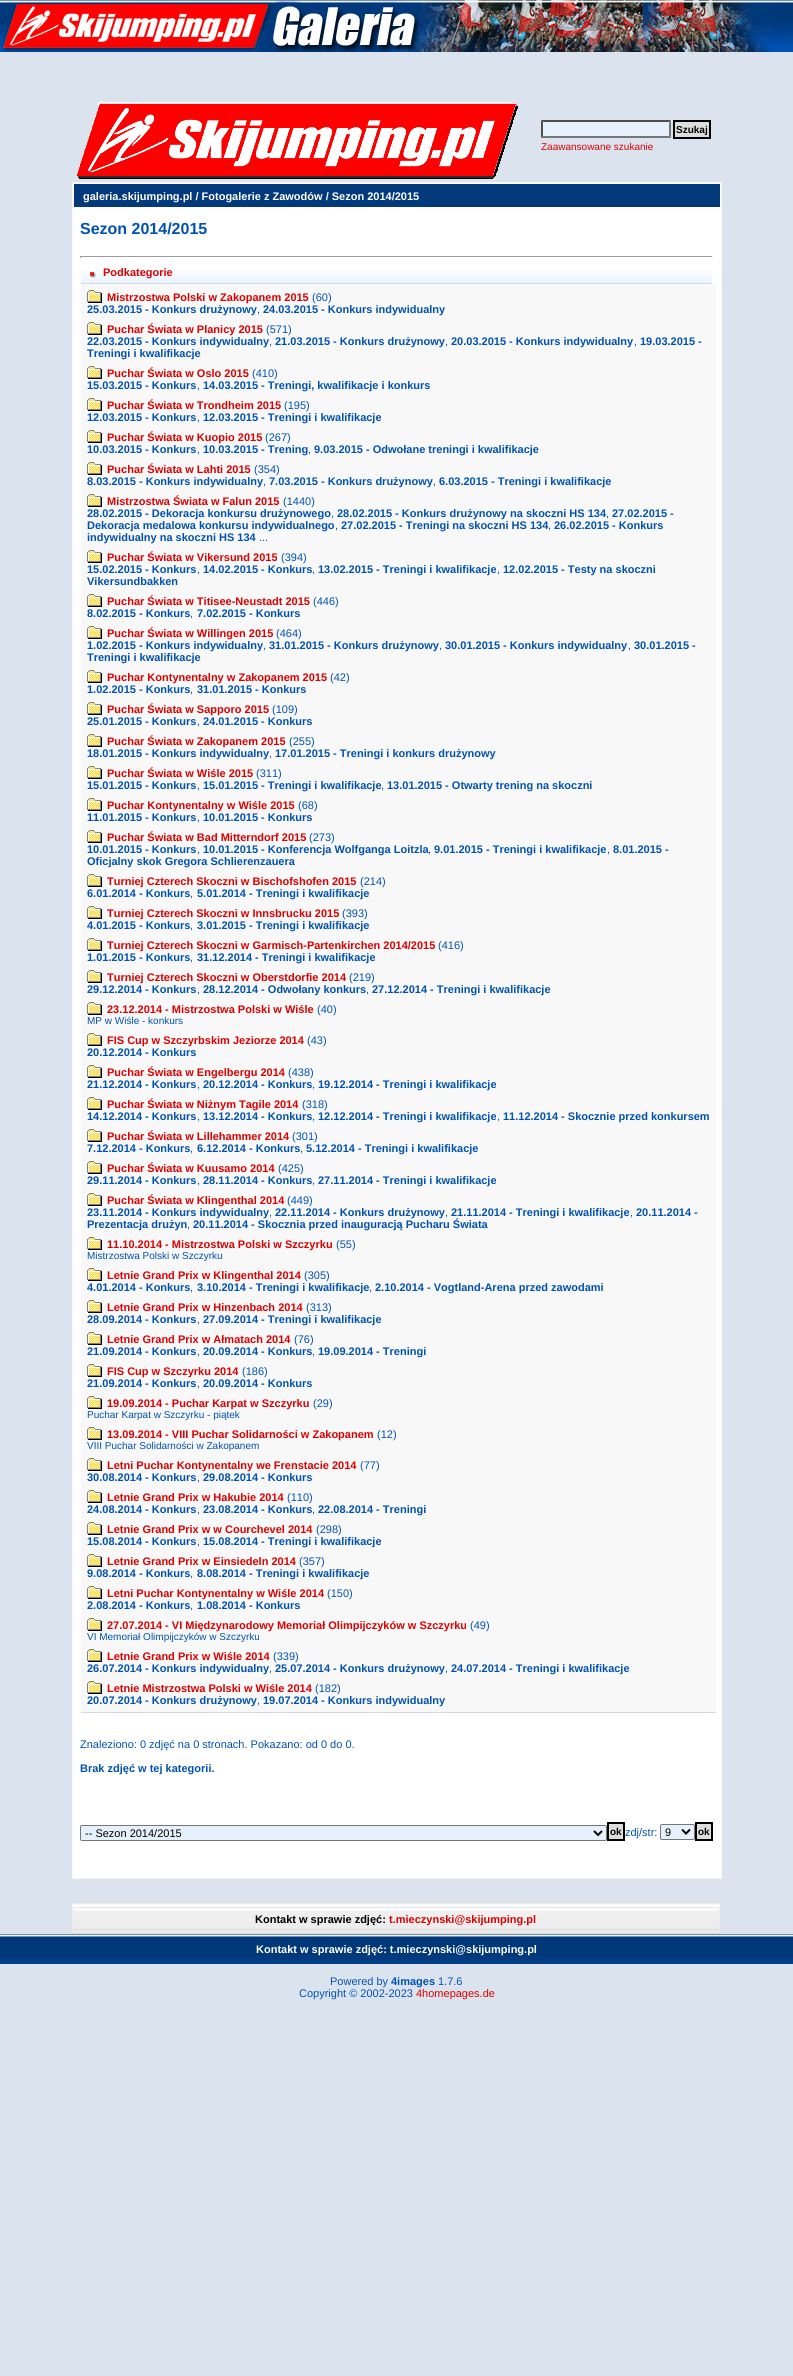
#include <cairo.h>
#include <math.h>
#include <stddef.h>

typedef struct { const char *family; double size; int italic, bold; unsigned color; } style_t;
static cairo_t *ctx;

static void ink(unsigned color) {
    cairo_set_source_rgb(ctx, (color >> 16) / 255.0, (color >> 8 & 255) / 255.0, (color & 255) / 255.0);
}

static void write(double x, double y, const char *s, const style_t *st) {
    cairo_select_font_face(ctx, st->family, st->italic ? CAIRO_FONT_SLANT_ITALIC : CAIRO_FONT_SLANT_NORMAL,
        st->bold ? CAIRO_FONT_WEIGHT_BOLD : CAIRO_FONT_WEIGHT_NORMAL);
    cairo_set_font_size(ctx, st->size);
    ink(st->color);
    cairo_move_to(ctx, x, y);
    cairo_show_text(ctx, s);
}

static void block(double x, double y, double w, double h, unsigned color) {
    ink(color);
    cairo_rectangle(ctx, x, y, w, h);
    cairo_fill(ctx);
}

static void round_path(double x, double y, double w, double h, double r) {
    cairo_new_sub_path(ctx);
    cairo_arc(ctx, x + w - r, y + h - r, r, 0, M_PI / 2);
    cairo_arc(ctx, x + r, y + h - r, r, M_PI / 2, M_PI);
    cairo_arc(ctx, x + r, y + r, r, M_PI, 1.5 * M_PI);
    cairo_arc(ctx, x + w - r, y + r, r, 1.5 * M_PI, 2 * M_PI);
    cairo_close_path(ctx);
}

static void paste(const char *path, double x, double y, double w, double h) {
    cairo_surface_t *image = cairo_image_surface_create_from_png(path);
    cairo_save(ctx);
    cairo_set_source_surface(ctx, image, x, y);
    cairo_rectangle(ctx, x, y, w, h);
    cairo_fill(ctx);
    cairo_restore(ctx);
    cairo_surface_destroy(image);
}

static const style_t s1 = {"Liberation Sans", 10, 0, 1, 0x000000};
static const style_t s2 = {"Liberation Sans", 10, 0, 0, 0xdd0000};
static const style_t s3 = {"Liberation Sans", 11, 0, 1, 0xffffff};
static const style_t s4 = {"Liberation Sans", 16, 0, 1, 0x0052b2};
static const style_t s5 = {"Liberation Sans", 11, 0, 1, 0xdd0000};
static const style_t s6 = {"Liberation Sans", 11, 0, 0, 0x0052b2};
static const style_t s7 = {"Liberation Sans", 11, 0, 1, 0x0052b2};
static const style_t s8 = {"Liberation Sans", 10, 0, 0, 0x0052b2};
static const style_t s9 = {"Liberation Sans", 11, 0, 0, 0x000000};
static const style_t s10 = {"Liberation Sans", 11, 0, 1, 0x000000};
static const style_t s11 = {"Liberation Sans", 11, 0, 0, 0xdd0000};

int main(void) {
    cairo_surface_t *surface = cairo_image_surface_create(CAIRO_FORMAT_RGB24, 793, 2376);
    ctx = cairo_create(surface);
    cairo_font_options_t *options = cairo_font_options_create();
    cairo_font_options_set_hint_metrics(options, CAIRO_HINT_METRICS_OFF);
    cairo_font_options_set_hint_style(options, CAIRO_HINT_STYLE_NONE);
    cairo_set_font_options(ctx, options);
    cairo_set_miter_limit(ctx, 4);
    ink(0xdbe4ee);
    cairo_paint(ctx);
    paste("pic1.png", 770, 0, 23, 52);
    paste("pic2.png", 0, 0, 770, 52);
    paste("pic3.png", 76, 101, 442, 78);
    block(541, 120, 130, 18, 0xe7f1fe);
    ink(0x4f4f4f);
    cairo_new_path(ctx);
    cairo_move_to(ctx, 541, 120);
    cairo_line_to(ctx, 671, 120);
    cairo_line_to(ctx, 669, 122);
    cairo_line_to(ctx, 543, 122);
    cairo_close_path(ctx);
    cairo_fill(ctx);
    ink(0x767676);
    cairo_new_path(ctx);
    cairo_move_to(ctx, 671, 120);
    cairo_line_to(ctx, 671, 138);
    cairo_line_to(ctx, 669, 136);
    cairo_line_to(ctx, 669, 122);
    cairo_close_path(ctx);
    cairo_fill(ctx);
    cairo_new_path(ctx);
    cairo_move_to(ctx, 671, 138);
    cairo_line_to(ctx, 541, 138);
    cairo_line_to(ctx, 543, 136);
    cairo_line_to(ctx, 669, 136);
    cairo_close_path(ctx);
    cairo_fill(ctx);
    ink(0x4f4f4f);
    cairo_new_path(ctx);
    cairo_move_to(ctx, 541, 138);
    cairo_line_to(ctx, 541, 120);
    cairo_line_to(ctx, 543, 122);
    cairo_line_to(ctx, 543, 136);
    cairo_close_path(ctx);
    cairo_fill(ctx);
    ink(0xdddddd);
    cairo_rectangle(ctx, 674, 121, 36, 17);
    cairo_fill_preserve(ctx);
    ink(0x000000);
    cairo_stroke(ctx);
    write(676, 133, "Szukaj", &s1);
    write(541, 150, "Zaawansowane szukanie", &s2);
    block(72, 182, 650, 1697, 0xf8f8f8);
    block(73, 183, 648, 1695, 0xffffff);
    block(74, 184, 646, 23, 0x01397a);
    write(83, 200, "galeria.skijumping.pl / Fotogalerie z Zawodów / Sezon 2014/2015", &s3);
    write(80, 234, "Sezon 2014/2015", &s4);
    block(80, 256, 633, 1, 0x9f9f9f);
    block(712, 256, 1, 2, 0xeeeeee);
    block(80, 256, 1, 2, 0x9f9f9f);
    paste("pic4.png", 81, 270, 631, 13);
    block(81, 283, 631, 1, 0xccdaeb);
    paste("pic5.png", 90, 272, 6, 6);
    write(103, 276, "Podkategorie", &s5);
    block(81, 284, 635, 1428, 0xf8f8f8);
    block(81, 1712, 635, 1, 0xd6d6e4);
    paste("pic6.png", 87, 290, 15, 13);
    write(107, 301, "Mistrzostwa Polski w Zakopanem 2015", &s5);
    write(312, 301, "(60)", &s6);
    write(87, 313, "25.03.2015 - Konkurs drużynowy", &s7);
    write(257, 313, ",", &s6);
    write(263, 313, "24.03.2015 - Konkurs indywidualny", &s7);
    paste("pic6.png", 87, 322, 15, 13);
    write(107, 333, "Puchar Świata w Planicy 2015", &s5);
    write(266, 333, "(571)", &s6);
    write(87, 345, "22.03.2015 - Konkurs indywidualny", &s7);
    write(269, 345, ",", &s6);
    write(275, 345, "21.03.2015 - Konkurs drużynowy", &s7);
    write(445, 345, ",", &s6);
    write(451, 345, "20.03.2015 - Konkurs indywidualny", &s7);
    write(634, 345, ",", &s6);
    write(640, 345, "19.03.2015 -", &s7);
    write(87, 357, "Treningi i kwalifikacje", &s7);
    paste("pic6.png", 87, 366, 15, 13);
    write(107, 377, "Puchar Świata w Oslo 2015", &s5);
    write(252, 377, "(410)", &s6);
    write(87, 389, "15.03.2015 - Konkurs", &s7);
    write(197, 389, ",", &s6);
    write(203, 389, "14.03.2015 - Treningi, kwalifikacje i konkurs", &s7);
    paste("pic6.png", 87, 398, 15, 13);
    write(107, 409, "Puchar Świata w Trondheim 2015", &s5);
    write(284, 409, "(195)", &s6);
    write(87, 421, "12.03.2015 - Konkurs", &s7);
    write(197, 421, ",", &s6);
    write(203, 421, "12.03.2015 - Treningi i kwalifikacje", &s7);
    paste("pic6.png", 87, 430, 15, 13);
    write(107, 441, "Puchar Świata w Kuopio 2015", &s5);
    write(265, 441, "(267)", &s6);
    write(87, 453, "10.03.2015 - Konkurs", &s7);
    write(197, 453, ",", &s6);
    write(203, 453, "10.03.2015 - Trening", &s7);
    write(308, 453, ",", &s6);
    write(314, 453, "9.03.2015 - Odwołane treningi i kwalifikacje", &s7);
    paste("pic6.png", 87, 462, 15, 13);
    write(107, 473, "Puchar Świata w Lahti 2015", &s5);
    write(254, 473, "(354)", &s6);
    write(87, 485, "8.03.2015 - Konkurs indywidualny", &s7);
    write(263, 485, ",", &s6);
    write(269, 485, "7.03.2015 - Konkurs drużynowy", &s7);
    write(433, 485, ",", &s6);
    write(439, 485, "6.03.2015 - Treningi i kwalifikacje", &s7);
    paste("pic6.png", 87, 494, 15, 13);
    write(107, 505, "Mistrzostwa Świata w Falun 2015", &s5);
    write(283, 505, "(1440)", &s6);
    write(87, 517, "28.02.2015 - Dekoracja konkursu drużynowego", &s7);
    write(331, 517, ",", &s6);
    write(337, 517, "28.02.2015 - Konkurs drużynowy na skoczni HS 134", &s7);
    write(606, 517, ",", &s6);
    write(612, 517, "27.02.2015 -", &s7);
    write(87, 529, "Dekoracja medalowa konkursu indywidualnego", &s7);
    write(335, 529, ",", &s6);
    write(341, 529, "27.02.2015 - Treningi na skoczni HS 134", &s7);
    write(548, 529, ",", &s6);
    write(554, 529, "26.02.2015 - Konkurs", &s7);
    write(87, 541, "indywidualny na skoczni HS 134", &s7);
    write(259, 541, "...", &s6);
    paste("pic6.png", 87, 550, 15, 13);
    write(107, 561, "Puchar Świata w Vikersund 2015", &s5);
    write(281, 561, "(394)", &s6);
    write(87, 573, "15.02.2015 - Konkurs", &s7);
    write(197, 573, ",", &s6);
    write(203, 573, "14.02.2015 - Konkurs", &s7);
    write(312, 573, ",", &s6);
    write(318, 573, "13.02.2015 - Treningi i kwalifikacje", &s7);
    write(497, 573, ",", &s6);
    write(503, 573, "12.02.2015 - Testy na skoczni", &s7);
    write(87, 585, "Vikersundbakken", &s7);
    paste("pic6.png", 87, 594, 15, 13);
    write(107, 605, "Puchar Świata w Titisee-Neustadt 2015", &s5);
    write(313, 605, "(446)", &s6);
    write(87, 617, "8.02.2015 - Konkurs", &s7);
    write(190, 617, ",", &s6);
    write(197, 617, "7.02.2015 - Konkurs", &s7);
    paste("pic6.png", 87, 626, 15, 13);
    write(107, 637, "Puchar Świata w Willingen 2015", &s5);
    write(276, 637, "(464)", &s6);
    write(87, 649, "1.02.2015 - Konkurs indywidualny", &s7);
    write(263, 649, ",", &s6);
    write(269, 649, "31.01.2015 - Konkurs drużynowy", &s7);
    write(439, 649, ",", &s6);
    write(445, 649, "30.01.2015 - Konkurs indywidualny", &s7);
    write(628, 649, ",", &s6);
    write(634, 649, "30.01.2015 -", &s7);
    write(87, 661, "Treningi i kwalifikacje", &s7);
    paste("pic6.png", 87, 670, 15, 13);
    write(107, 681, "Puchar Kontynentalny w Zakopanem 2015", &s5);
    write(330, 681, "(42)", &s6);
    write(87, 693, "1.02.2015 - Konkurs", &s7);
    write(190, 693, ",", &s6);
    write(197, 693, "31.01.2015 - Konkurs", &s7);
    paste("pic6.png", 87, 702, 15, 13);
    write(107, 713, "Puchar Świata w Sapporo 2015", &s5);
    write(272, 713, "(109)", &s6);
    write(87, 725, "25.01.2015 - Konkurs", &s7);
    write(197, 725, ",", &s6);
    write(203, 725, "24.01.2015 - Konkurs", &s7);
    paste("pic6.png", 87, 734, 15, 13);
    write(107, 745, "Puchar Świata w Zakopanem 2015", &s5);
    write(289, 745, "(255)", &s6);
    write(87, 757, "18.01.2015 - Konkurs indywidualny", &s7);
    write(269, 757, ",", &s6);
    write(275, 757, "17.01.2015 - Treningi i konkurs drużynowy", &s7);
    paste("pic6.png", 87, 766, 15, 13);
    write(107, 777, "Puchar Świata w Wiśle 2015", &s5);
    write(256, 777, "(311)", &s6);
    write(87, 789, "15.01.2015 - Konkurs", &s7);
    write(197, 789, ",", &s6);
    write(203, 789, "15.01.2015 - Treningi i kwalifikacje", &s7);
    write(381, 789, ",", &s6);
    write(387, 789, "13.01.2015 - Otwarty trening na skoczni", &s7);
    paste("pic6.png", 87, 798, 15, 13);
    write(107, 809, "Puchar Kontynentalny w Wiśle 2015", &s5);
    write(298, 809, "(68)", &s6);
    write(87, 821, "11.01.2015 - Konkurs", &s7);
    write(197, 821, ",", &s6);
    write(203, 821, "10.01.2015 - Konkurs", &s7);
    paste("pic6.png", 87, 830, 15, 13);
    write(107, 841, "Puchar Świata w Bad Mitterndorf 2015", &s5);
    write(309, 841, "(273)", &s6);
    write(87, 853, "10.01.2015 - Konkurs", &s7);
    write(197, 853, ",", &s6);
    write(203, 853, "10.01.2015 - Konferencja Wolfganga Loitzla", &s7);
    write(428, 853, ",", &s6);
    write(434, 853, "9.01.2015 - Treningi i kwalifikacje", &s7);
    write(607, 853, ",", &s6);
    write(613, 853, "8.01.2015 -", &s7);
    write(87, 865, "Oficjalny skok Gregora Schlierenzauera", &s7);
    paste("pic6.png", 87, 874, 15, 13);
    write(107, 885, "Turniej Czterech Skoczni w Bischofshofen 2015", &s5);
    write(360, 885, "(214)", &s6);
    write(87, 897, "6.01.2014 - Konkurs", &s7);
    write(190, 897, ",", &s6);
    write(197, 897, "5.01.2014 - Treningi i kwalifikacje", &s7);
    paste("pic6.png", 87, 906, 15, 13);
    write(107, 917, "Turniej Czterech Skoczni w Innsbrucku 2015", &s5);
    write(342, 917, "(393)", &s6);
    write(87, 929, "4.01.2015 - Konkurs", &s7);
    write(190, 929, ",", &s6);
    write(197, 929, "3.01.2015 - Treningi i kwalifikacje", &s7);
    paste("pic6.png", 87, 938, 15, 13);
    write(107, 949, "Turniej Czterech Skoczni w Garmisch-Partenkirchen 2014/2015", &s5);
    write(438, 949, "(416)", &s6);
    write(87, 961, "1.01.2015 - Konkurs", &s7);
    write(190, 961, ",", &s6);
    write(197, 961, "31.12.2014 - Treningi i kwalifikacje", &s7);
    paste("pic6.png", 87, 970, 15, 13);
    write(107, 981, "Turniej Czterech Skoczni w Oberstdorfie 2014", &s5);
    write(349, 981, "(219)", &s6);
    write(87, 993, "29.12.2014 - Konkurs", &s7);
    write(197, 993, ",", &s6);
    write(203, 993, "28.12.2014 - Odwołany konkurs", &s7);
    write(366, 993, ",", &s6);
    write(372, 993, "27.12.2014 - Treningi i kwalifikacje", &s7);
    paste("pic6.png", 87, 1002, 15, 13);
    write(107, 1013, "23.12.2014 - Mistrzostwa Polski w Wiśle", &s5);
    write(317, 1013, "(40)", &s6);
    write(87, 1024, "MP w Wiśle - konkurs", &s8);
    paste("pic6.png", 87, 1033, 15, 13);
    write(107, 1044, "FIS Cup w Szczyrbskim Jeziorze 2014", &s5);
    write(307, 1044, "(43)", &s6);
    write(87, 1056, "20.12.2014 - Konkurs", &s7);
    paste("pic6.png", 87, 1065, 15, 13);
    write(107, 1076, "Puchar Świata w Engelbergu 2014", &s5);
    write(288, 1076, "(438)", &s6);
    write(87, 1088, "21.12.2014 - Konkurs", &s7);
    write(197, 1088, ",", &s6);
    write(203, 1088, "20.12.2014 - Konkurs", &s7);
    write(312, 1088, ",", &s6);
    write(318, 1088, "19.12.2014 - Treningi i kwalifikacje", &s7);
    paste("pic6.png", 87, 1097, 15, 13);
    write(107, 1108, "Puchar Świata w Niżnym Tagile 2014", &s5);
    write(302, 1108, "(318)", &s6);
    write(87, 1120, "14.12.2014 - Konkurs", &s7);
    write(197, 1120, ",", &s6);
    write(203, 1120, "13.12.2014 - Konkurs", &s7);
    write(312, 1120, ",", &s6);
    write(318, 1120, "12.12.2014 - Treningi i kwalifikacje", &s7);
    write(497, 1120, ",", &s6);
    write(503, 1120, "11.12.2014 - Skocznie przed konkursem", &s7);
    paste("pic6.png", 87, 1129, 15, 13);
    write(107, 1140, "Puchar Świata w Lillehammer 2014", &s5);
    write(292, 1140, "(301)", &s6);
    write(87, 1152, "7.12.2014 - Konkurs", &s7);
    write(190, 1152, ",", &s6);
    write(197, 1152, "6.12.2014 - Konkurs", &s7);
    write(300, 1152, ",", &s6);
    write(306, 1152, "5.12.2014 - Treningi i kwalifikacje", &s7);
    paste("pic6.png", 87, 1161, 15, 13);
    write(107, 1172, "Puchar Świata w Kuusamo 2014", &s5);
    write(278, 1172, "(425)", &s6);
    write(87, 1184, "29.11.2014 - Konkurs", &s7);
    write(197, 1184, ",", &s6);
    write(203, 1184, "28.11.2014 - Konkurs", &s7);
    write(312, 1184, ",", &s6);
    write(318, 1184, "27.11.2014 - Treningi i kwalifikacje", &s7);
    paste("pic6.png", 87, 1193, 15, 13);
    write(107, 1204, "Puchar Świata w Klingenthal 2014", &s5);
    write(287, 1204, "(449)", &s6);
    write(87, 1216, "23.11.2014 - Konkurs indywidualny", &s7);
    write(269, 1216, ",", &s6);
    write(275, 1216, "22.11.2014 - Konkurs drużynowy", &s7);
    write(445, 1216, ",", &s6);
    write(451, 1216, "21.11.2014 - Treningi i kwalifikacje", &s7);
    write(630, 1216, ",", &s6);
    write(636, 1216, "20.11.2014 -", &s7);
    write(87, 1228, "Prezentacja drużyn", &s7);
    write(187, 1228, ",", &s6);
    write(193, 1228, "20.11.2014 - Skocznia przed inauguracją Pucharu Świata", &s7);
    paste("pic6.png", 87, 1237, 15, 13);
    write(107, 1248, "11.10.2014 - Mistrzostwa Polski w Szczyrku", &s5);
    write(336, 1248, "(55)", &s6);
    write(87, 1259, "Mistrzostwa Polski w Szczyrku", &s8);
    paste("pic6.png", 87, 1268, 15, 13);
    write(107, 1279, "Letnie Grand Prix w Klingenthal 2014", &s5);
    write(304, 1279, "(305)", &s6);
    write(87, 1291, "4.01.2014 - Konkurs", &s7);
    write(190, 1291, ",", &s6);
    write(197, 1291, "3.10.2014 - Treningi i kwalifikacje", &s7);
    write(369, 1291, ",", &s6);
    write(375, 1291, "2.10.2014 - Vogtland-Arena przed zawodami", &s7);
    paste("pic6.png", 87, 1300, 15, 13);
    write(107, 1311, "Letnie Grand Prix w Hinzenbach 2014", &s5);
    write(306, 1311, "(313)", &s6);
    write(87, 1323, "28.09.2014 - Konkurs", &s7);
    write(197, 1323, ",", &s6);
    write(203, 1323, "27.09.2014 - Treningi i kwalifikacje", &s7);
    paste("pic6.png", 87, 1332, 15, 13);
    write(107, 1343, "Letnie Grand Prix w Ałmatach 2014", &s5);
    write(294, 1343, "(76)", &s6);
    write(87, 1355, "21.09.2014 - Konkurs", &s7);
    write(197, 1355, ",", &s6);
    write(203, 1355, "20.09.2014 - Konkurs", &s7);
    write(312, 1355, ",", &s6);
    write(318, 1355, "19.09.2014 - Treningi", &s7);
    paste("pic6.png", 87, 1364, 15, 13);
    write(107, 1375, "FIS Cup w Szczyrku 2014", &s5);
    write(242, 1375, "(186)", &s6);
    write(87, 1387, "21.09.2014 - Konkurs", &s7);
    write(197, 1387, ",", &s6);
    write(203, 1387, "20.09.2014 - Konkurs", &s7);
    paste("pic6.png", 87, 1396, 15, 13);
    write(107, 1407, "19.09.2014 - Puchar Karpat w Szczyrku", &s5);
    write(313, 1407, "(29)", &s6);
    write(87, 1418, "Puchar Karpat w Szczyrku - piątek", &s8);
    paste("pic6.png", 87, 1427, 15, 13);
    write(107, 1438, "13.09.2014 - VIII Puchar Solidarności w Zakopanem", &s5);
    write(377, 1438, "(12)", &s6);
    write(87, 1449, "VIII Puchar Solidarności w Zakopanem", &s8);
    paste("pic6.png", 87, 1458, 15, 13);
    write(107, 1469, "Letni Puchar Kontynentalny we Frenstacie 2014", &s5);
    write(360, 1469, "(77)", &s6);
    write(87, 1481, "30.08.2014 - Konkurs", &s7);
    write(197, 1481, ",", &s6);
    write(203, 1481, "29.08.2014 - Konkurs", &s7);
    paste("pic6.png", 87, 1490, 15, 13);
    write(107, 1501, "Letnie Grand Prix w Hakubie 2014", &s5);
    write(287, 1501, "(110)", &s6);
    write(87, 1513, "24.08.2014 - Konkurs", &s7);
    write(197, 1513, ",", &s6);
    write(203, 1513, "23.08.2014 - Konkurs", &s7);
    write(312, 1513, ",", &s6);
    write(318, 1513, "22.08.2014 - Treningi", &s7);
    paste("pic6.png", 87, 1522, 15, 13);
    write(107, 1533, "Letnie Grand Prix w w Courchevel 2014", &s5);
    write(316, 1533, "(298)", &s6);
    write(87, 1545, "15.08.2014 - Konkurs", &s7);
    write(197, 1545, ",", &s6);
    write(203, 1545, "15.08.2014 - Treningi i kwalifikacje", &s7);
    paste("pic6.png", 87, 1554, 15, 13);
    write(107, 1565, "Letnie Grand Prix w Einsiedeln 2014", &s5);
    write(299, 1565, "(357)", &s6);
    write(87, 1577, "9.08.2014 - Konkurs", &s7);
    write(190, 1577, ",", &s6);
    write(197, 1577, "8.08.2014 - Treningi i kwalifikacje", &s7);
    paste("pic6.png", 87, 1586, 15, 13);
    write(107, 1597, "Letni Puchar Kontynentalny w Wiśle 2014", &s5);
    write(327, 1597, "(150)", &s6);
    write(87, 1609, "2.08.2014 - Konkurs", &s7);
    write(190, 1609, ",", &s6);
    write(197, 1609, "1.08.2014 - Konkurs", &s7);
    paste("pic6.png", 87, 1618, 15, 13);
    write(107, 1629, "27.07.2014 - VI Międzynarodowy Memoriał Olimpijczyków w Szczyrku", &s5);
    write(470, 1629, "(49)", &s6);
    write(87, 1640, "VI Memoriał Olimpijczyków w Szczyrku", &s8);
    paste("pic6.png", 87, 1649, 15, 13);
    write(107, 1660, "Letnie Grand Prix w Wiśle 2014", &s5);
    write(273, 1660, "(339)", &s6);
    write(87, 1672, "26.07.2014 - Konkurs indywidualny", &s7);
    write(269, 1672, ",", &s6);
    write(275, 1672, "25.07.2014 - Konkurs drużynowy", &s7);
    write(445, 1672, ",", &s6);
    write(451, 1672, "24.07.2014 - Treningi i kwalifikacje", &s7);
    paste("pic6.png", 87, 1681, 15, 13);
    write(107, 1692, "Letnie Mistrzostwa Polski w Wiśle 2014", &s5);
    write(315, 1692, "(182)", &s6);
    write(87, 1704, "20.07.2014 - Konkurs drużynowy", &s7);
    write(257, 1704, ",", &s6);
    write(263, 1704, "19.07.2014 - Konkurs indywidualny", &s7);
    write(80, 1748, "Znaleziono: 0 zdjęć na 0 stronach. Pokazano: od 0 do 0.", &s6);
    write(80, 1772, "Brak zdjęć w tej kategorii.", &s7);
    ink(0xe7f1fe);
    round_path(80.5, 1825.5, 526, 15, 1.5);
    cairo_fill_preserve(ctx);
    ink(0x767676);
    cairo_set_line_width(ctx, 1);
    cairo_stroke(ctx);
    cairo_new_path(ctx);
    cairo_move_to(ctx, 594, 1831);
    cairo_line_to(ctx, 598, 1835);
    cairo_line_to(ctx, 602, 1831);
    ink(0x000000);
    cairo_set_line_width(ctx, 2);
    cairo_stroke(ctx);
    write(85, 1837, "-- Sezon 2014/2015", &s9);
    ink(0xdddddd);
    cairo_rectangle(ctx, 608, 1823, 16, 17);
    cairo_fill_preserve(ctx);
    ink(0x000000);
    cairo_stroke(ctx);
    write(610, 1835, "ok", &s1);
    write(625, 1836, "zdj/str:", &s6);
    ink(0xe7f1fe);
    round_path(660.5, 1824.5, 34, 15, 1.5);
    cairo_fill_preserve(ctx);
    ink(0x767676);
    cairo_set_line_width(ctx, 1);
    cairo_stroke(ctx);
    cairo_new_path(ctx);
    cairo_move_to(ctx, 682, 1829.5);
    cairo_line_to(ctx, 686, 1833.5);
    cairo_line_to(ctx, 690, 1829.5);
    ink(0x000000);
    cairo_set_line_width(ctx, 2);
    cairo_stroke(ctx);
    write(665, 1836, "9", &s9);
    ink(0xdddddd);
    cairo_rectangle(ctx, 696, 1823, 16, 17);
    cairo_fill_preserve(ctx);
    ink(0x000000);
    cairo_stroke(ctx);
    write(698, 1835, "ok", &s1);
    paste("pic7.png", 72, 1904, 648, 29);
    block(72, 1903, 648, 1, 0xedeaea);
    block(72, 1933, 648, 1, 0xdddddd);
    paste("pic8.png", 74, 1908, 644, 21);
    block(74, 1907, 644, 1, 0xedeaea);
    block(74, 1929, 644, 1, 0xdddddd);
    write(255, 1923, "Kontakt w sprawie zdjęć:", &s10);
    write(389, 1923, "t.mieczynski@skijumping.pl", &s5);
    paste("pic9.png", 0, 1934, 793, 30);
    write(256, 1953, "Kontakt w sprawie zdjęć: t.mieczynski@skijumping.pl", &s3);
    write(330, 1985, "Powered by", &s6);
    write(391, 1985, "4images", &s7);
    write(438, 1985, "1.7.6", &s6);
    write(299, 1997, "Copyright © 2002-2023", &s6);
    write(416, 1997, "4homepages.de", &s11);
    cairo_surface_write_to_png(surface, "screenshot.png");
    cairo_font_options_destroy(options);
    cairo_destroy(ctx);
    cairo_surface_destroy(surface);
    return 0;
}
